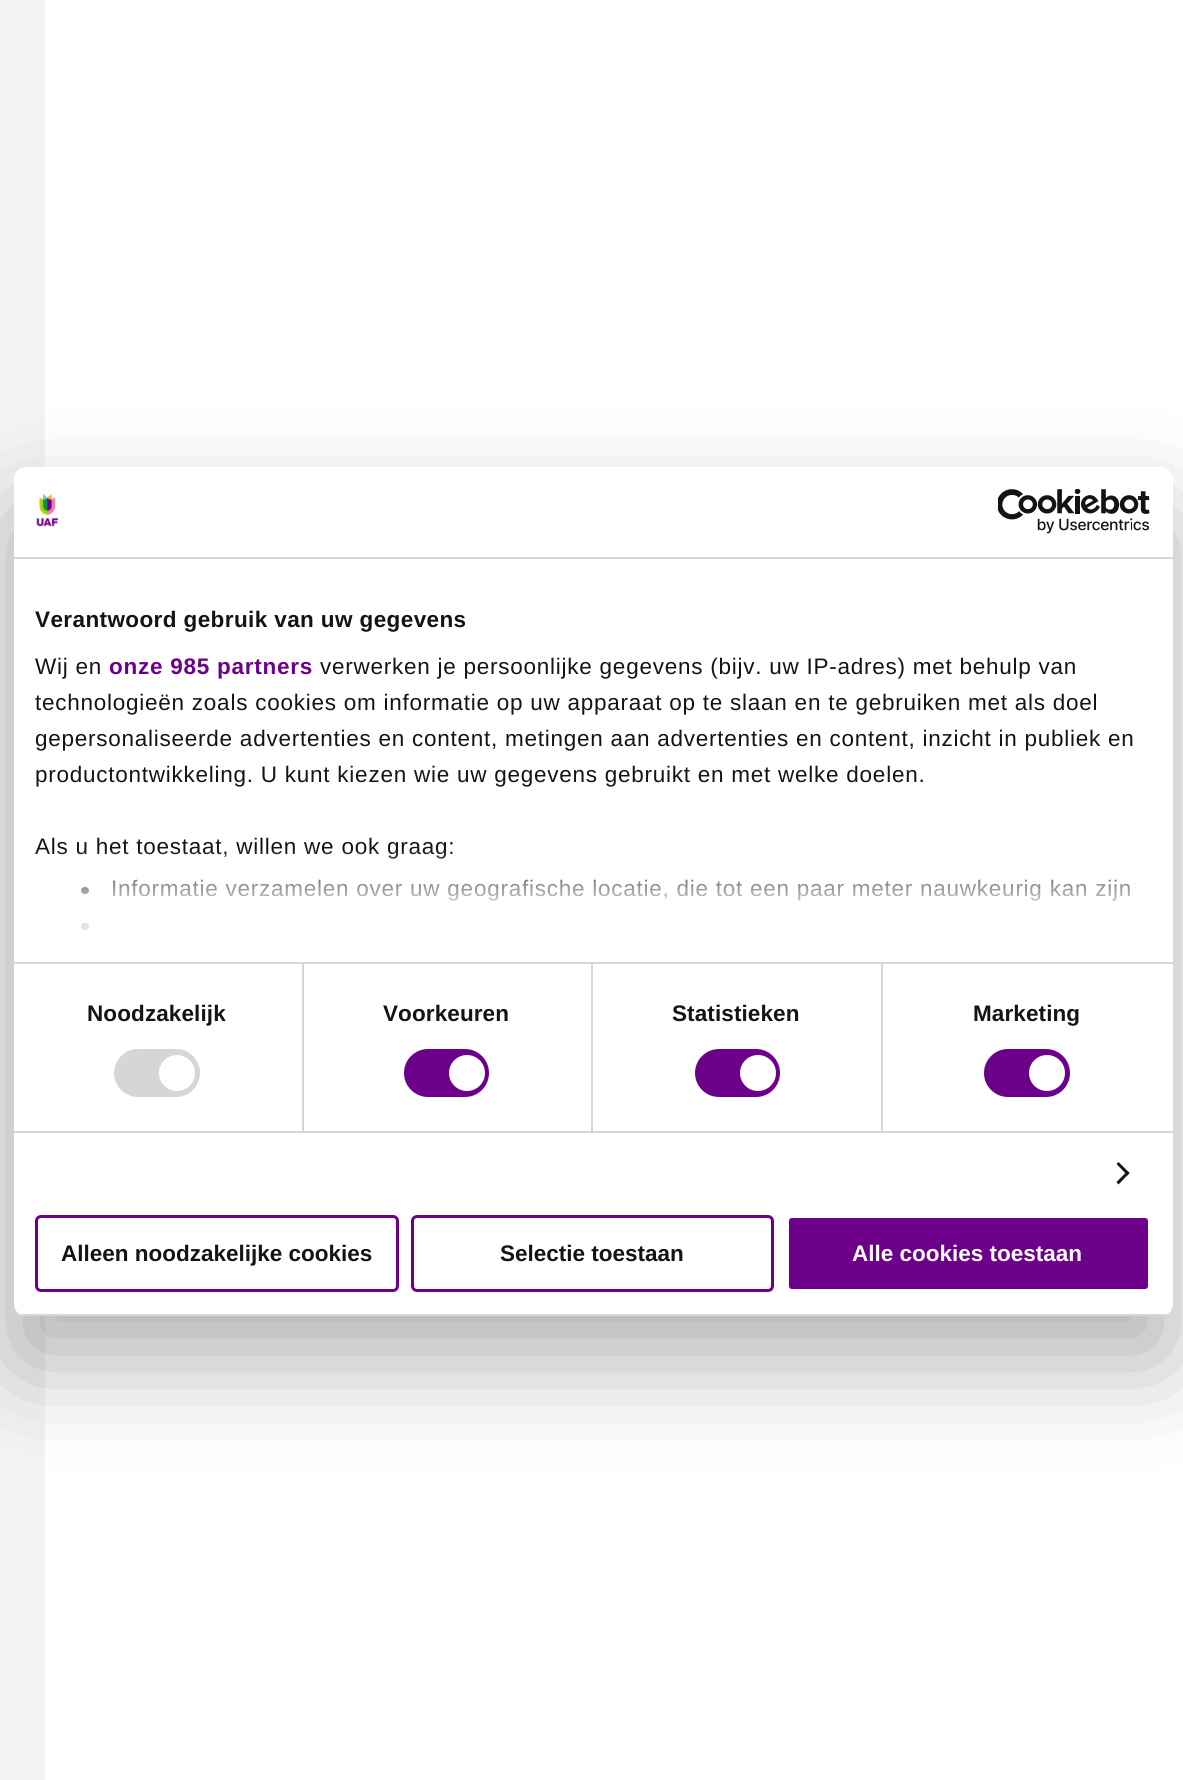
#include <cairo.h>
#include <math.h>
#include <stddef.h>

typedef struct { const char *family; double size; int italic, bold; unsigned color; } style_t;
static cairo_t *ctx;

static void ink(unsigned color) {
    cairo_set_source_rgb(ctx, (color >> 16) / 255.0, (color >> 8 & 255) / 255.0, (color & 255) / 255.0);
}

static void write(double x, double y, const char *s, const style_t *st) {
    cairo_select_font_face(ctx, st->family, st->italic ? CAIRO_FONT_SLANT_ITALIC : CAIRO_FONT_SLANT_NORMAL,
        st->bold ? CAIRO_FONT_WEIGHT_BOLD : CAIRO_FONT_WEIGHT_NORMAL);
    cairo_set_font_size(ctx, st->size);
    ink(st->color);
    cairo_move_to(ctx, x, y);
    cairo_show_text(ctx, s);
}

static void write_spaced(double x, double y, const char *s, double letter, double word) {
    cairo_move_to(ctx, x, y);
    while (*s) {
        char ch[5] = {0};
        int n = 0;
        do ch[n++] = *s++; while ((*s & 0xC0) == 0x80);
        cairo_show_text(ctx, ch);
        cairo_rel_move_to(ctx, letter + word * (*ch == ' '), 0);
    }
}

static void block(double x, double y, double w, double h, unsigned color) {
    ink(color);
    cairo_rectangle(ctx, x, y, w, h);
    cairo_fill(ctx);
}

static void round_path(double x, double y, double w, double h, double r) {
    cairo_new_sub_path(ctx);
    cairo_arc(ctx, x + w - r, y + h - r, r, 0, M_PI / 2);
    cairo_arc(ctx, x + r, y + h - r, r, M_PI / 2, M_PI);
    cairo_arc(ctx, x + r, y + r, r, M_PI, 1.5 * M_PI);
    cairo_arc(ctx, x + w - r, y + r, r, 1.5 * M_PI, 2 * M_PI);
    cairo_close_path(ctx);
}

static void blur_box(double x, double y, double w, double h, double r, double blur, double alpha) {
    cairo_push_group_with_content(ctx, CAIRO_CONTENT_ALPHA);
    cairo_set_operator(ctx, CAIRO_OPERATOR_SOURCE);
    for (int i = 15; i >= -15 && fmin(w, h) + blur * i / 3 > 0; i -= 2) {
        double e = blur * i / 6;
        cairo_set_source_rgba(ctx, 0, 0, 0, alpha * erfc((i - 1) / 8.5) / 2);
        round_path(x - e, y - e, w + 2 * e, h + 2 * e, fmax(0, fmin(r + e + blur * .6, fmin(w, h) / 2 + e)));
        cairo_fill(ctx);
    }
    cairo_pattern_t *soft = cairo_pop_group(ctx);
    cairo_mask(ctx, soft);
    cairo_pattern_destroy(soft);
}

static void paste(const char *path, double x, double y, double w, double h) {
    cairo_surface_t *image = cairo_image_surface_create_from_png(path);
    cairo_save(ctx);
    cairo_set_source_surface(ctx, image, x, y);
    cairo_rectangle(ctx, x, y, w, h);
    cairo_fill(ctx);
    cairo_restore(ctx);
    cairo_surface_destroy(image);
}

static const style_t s1 = {"Liberation Sans", 22.5, 0, 1, 0x141414};
static const style_t s2 = {"Liberation Sans", 22.5, 0, 1, 0xffffff};

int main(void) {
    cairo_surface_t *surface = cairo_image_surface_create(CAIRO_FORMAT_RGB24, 1183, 1780);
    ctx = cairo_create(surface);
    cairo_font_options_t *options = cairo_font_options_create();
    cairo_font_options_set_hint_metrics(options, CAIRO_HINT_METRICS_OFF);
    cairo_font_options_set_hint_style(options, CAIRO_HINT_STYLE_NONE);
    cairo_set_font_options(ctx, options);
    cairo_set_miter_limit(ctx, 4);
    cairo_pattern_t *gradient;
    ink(0xf4f4f4);
    cairo_paint(ctx);
    block(45, 0, 1138, 1780, 0xffffff);
    ink(0x000000);
    blur_box(14, 515, 1159, 849, 12, 51, 0.3);
    ink(0xffffff);
    round_path(14, 467, 1159, 849, 12);
    cairo_fill(ctx);
    block(14, 557, 1159, 2, 0xd6d6d6);
    paste("pic1.png", 36, 494, 23, 33);
    paste("pic2.png", 998, 489, 152, 45);
    block(302, 963, 2, 168, 0xd6d6d6);
    block(591, 963, 2, 168, 0xd6d6d6);
    block(881, 963, 2, 168, 0xd6d6d6);
    block(14, 962, 1159, 2, 0xd6d6d6);
    cairo_select_font_face(ctx, "Liberation Sans", CAIRO_FONT_SLANT_NORMAL, CAIRO_FONT_WEIGHT_BOLD);
    cairo_set_font_size(ctx, 22.5);
    ink(0x141414);
    write_spaced(35, 627, "Verantwoord gebruik van uw gegevens", 0.4, 0);
    cairo_select_font_face(ctx, "Liberation Sans", CAIRO_FONT_SLANT_NORMAL, CAIRO_FONT_WEIGHT_NORMAL);
    write_spaced(35, 674, "Wij en", 0.75, 0);
    cairo_select_font_face(ctx, "Liberation Sans", CAIRO_FONT_SLANT_NORMAL, CAIRO_FONT_WEIGHT_BOLD);
    ink(0x6d008b);
    write_spaced(109, 674, "onze 985 partners", 0.75, 0);
    cairo_select_font_face(ctx, "Liberation Sans", CAIRO_FONT_SLANT_NORMAL, CAIRO_FONT_WEIGHT_NORMAL);
    ink(0x141414);
    write_spaced(320, 674, "verwerken je persoonlijke gegevens (bijv. uw IP-adres) met behulp van", 0.75, 0);
    write_spaced(35, 710, "technologieën zoals cookies om informatie op uw apparaat op te slaan en te gebruiken met als doel", 0.75, 0);
    write_spaced(35, 746, "gepersonaliseerde advertenties en content, metingen aan advertenties en content, inzicht in publiek en", 0.75, 0);
    write_spaced(35, 782, "productontwikkeling. U kunt kiezen wie uw gegevens gebruikt en met welke doelen.", 0.75, 0);
    write_spaced(35, 854, "Als u het toestaat, willen we ook graag:", 0.75, 0);
    round_path(81, 887, 8, 7, 3.5);
    cairo_fill(ctx);
    write_spaced(111, 896, "Informatie verzamelen over uw geografische locatie, die tot een paar meter nauwkeurig kan zijn", 0.75, 0);
    round_path(81, 923, 8, 7, 3.5);
    cairo_fill(ctx);
    gradient = cairo_pattern_create_linear(583, 961, 583, 848);
    cairo_pattern_add_color_stop_rgba(gradient, 0, 1, 1, 1, 1);
    cairo_pattern_add_color_stop_rgba(gradient, 0.5, 1, 1, 1, 0.8);
    cairo_pattern_add_color_stop_rgba(gradient, 1, 1, 1, 1, 0);
    cairo_set_source(ctx, gradient);
    cairo_pattern_destroy(gradient);
    cairo_rectangle(ctx, 34, 850, 1096, 80);
    cairo_fill(ctx);
    block(14, 1131, 1159, 2, 0xd6d6d6);
    cairo_select_font_face(ctx, "Liberation Sans", CAIRO_FONT_SLANT_NORMAL, CAIRO_FONT_WEIGHT_BOLD);
    ink(0x141414);
    write_spaced(87, 1021, "Noodzakelijk", 0.1, 0);
    ink(0xd6d6d6);
    round_path(114, 1049, 86, 48, 24);
    cairo_fill(ctx);
    ink(0xffffff);
    cairo_arc(ctx, 177, 1073, 18, 0, 2 * M_PI);
    cairo_fill(ctx);
    ink(0x141414);
    write_spaced(383, 1021, "Voorkeuren", 0.1, 0);
    ink(0x6d008b);
    round_path(404, 1049, 85, 48, 24);
    cairo_fill(ctx);
    ink(0xffffff);
    cairo_arc(ctx, 467, 1073, 18, 0, 2 * M_PI);
    cairo_fill(ctx);
    ink(0x141414);
    write_spaced(672, 1021, "Statistieken", 0.1, 0);
    ink(0x6d008b);
    round_path(695, 1049, 85, 48, 24);
    cairo_fill(ctx);
    ink(0xffffff);
    cairo_arc(ctx, 758, 1073, 18, 0, 2 * M_PI);
    cairo_fill(ctx);
    ink(0x141414);
    write_spaced(973, 1021, "Marketing", 0.1, 0);
    ink(0x6d008b);
    round_path(984, 1049, 86, 48, 24);
    cairo_fill(ctx);
    ink(0xffffff);
    cairo_arc(ctx, 1047, 1073, 18, 0, 2 * M_PI);
    cairo_fill(ctx);
    ink(0x141414);
    cairo_new_path(ctx);
    cairo_move_to(ctx, 1118.5, 1162);
    cairo_line_to(ctx, 1129.5, 1173);
    cairo_line_to(ctx, 1127.5, 1175.5);
    cairo_line_to(ctx, 1116.5, 1164);
    cairo_close_path(ctx);
    cairo_fill(ctx);
    cairo_new_path(ctx);
    cairo_move_to(ctx, 1127.5, 1171);
    cairo_line_to(ctx, 1129.5, 1173);
    cairo_line_to(ctx, 1118.5, 1184.5);
    cairo_line_to(ctx, 1116.5, 1182);
    cairo_close_path(ctx);
    cairo_fill(ctx);
    cairo_save(ctx);
    round_path(14, 467, 1159, 849, 12);
    cairo_clip(ctx);
    block(14, 1314, 1159, 2, 0xd6d6d6);
    cairo_restore(ctx);
    round_path(36.5, 1216.5, 361, 74, 4.5);
    ink(0x6d008b);
    cairo_set_line_width(ctx, 3);
    cairo_stroke(ctx);
    write(61, 1261, "Alleen noodzakelijke cookies", &s1);
    round_path(412.5, 1216.5, 360, 74, 4.5);
    ink(0x6d008b);
    cairo_stroke(ctx);
    write(500, 1261, "Selectie toestaan", &s1);
    ink(0x6d008b);
    round_path(787.5, 1216.5, 362, 74, 4.5);
    cairo_fill_preserve(ctx);
    ink(0xffffff);
    cairo_stroke(ctx);
    write(852, 1261, "Alle cookies toestaan", &s2);
    cairo_surface_write_to_png(surface, "screenshot.png");
    cairo_font_options_destroy(options);
    cairo_destroy(ctx);
    cairo_surface_destroy(surface);
    return 0;
}
